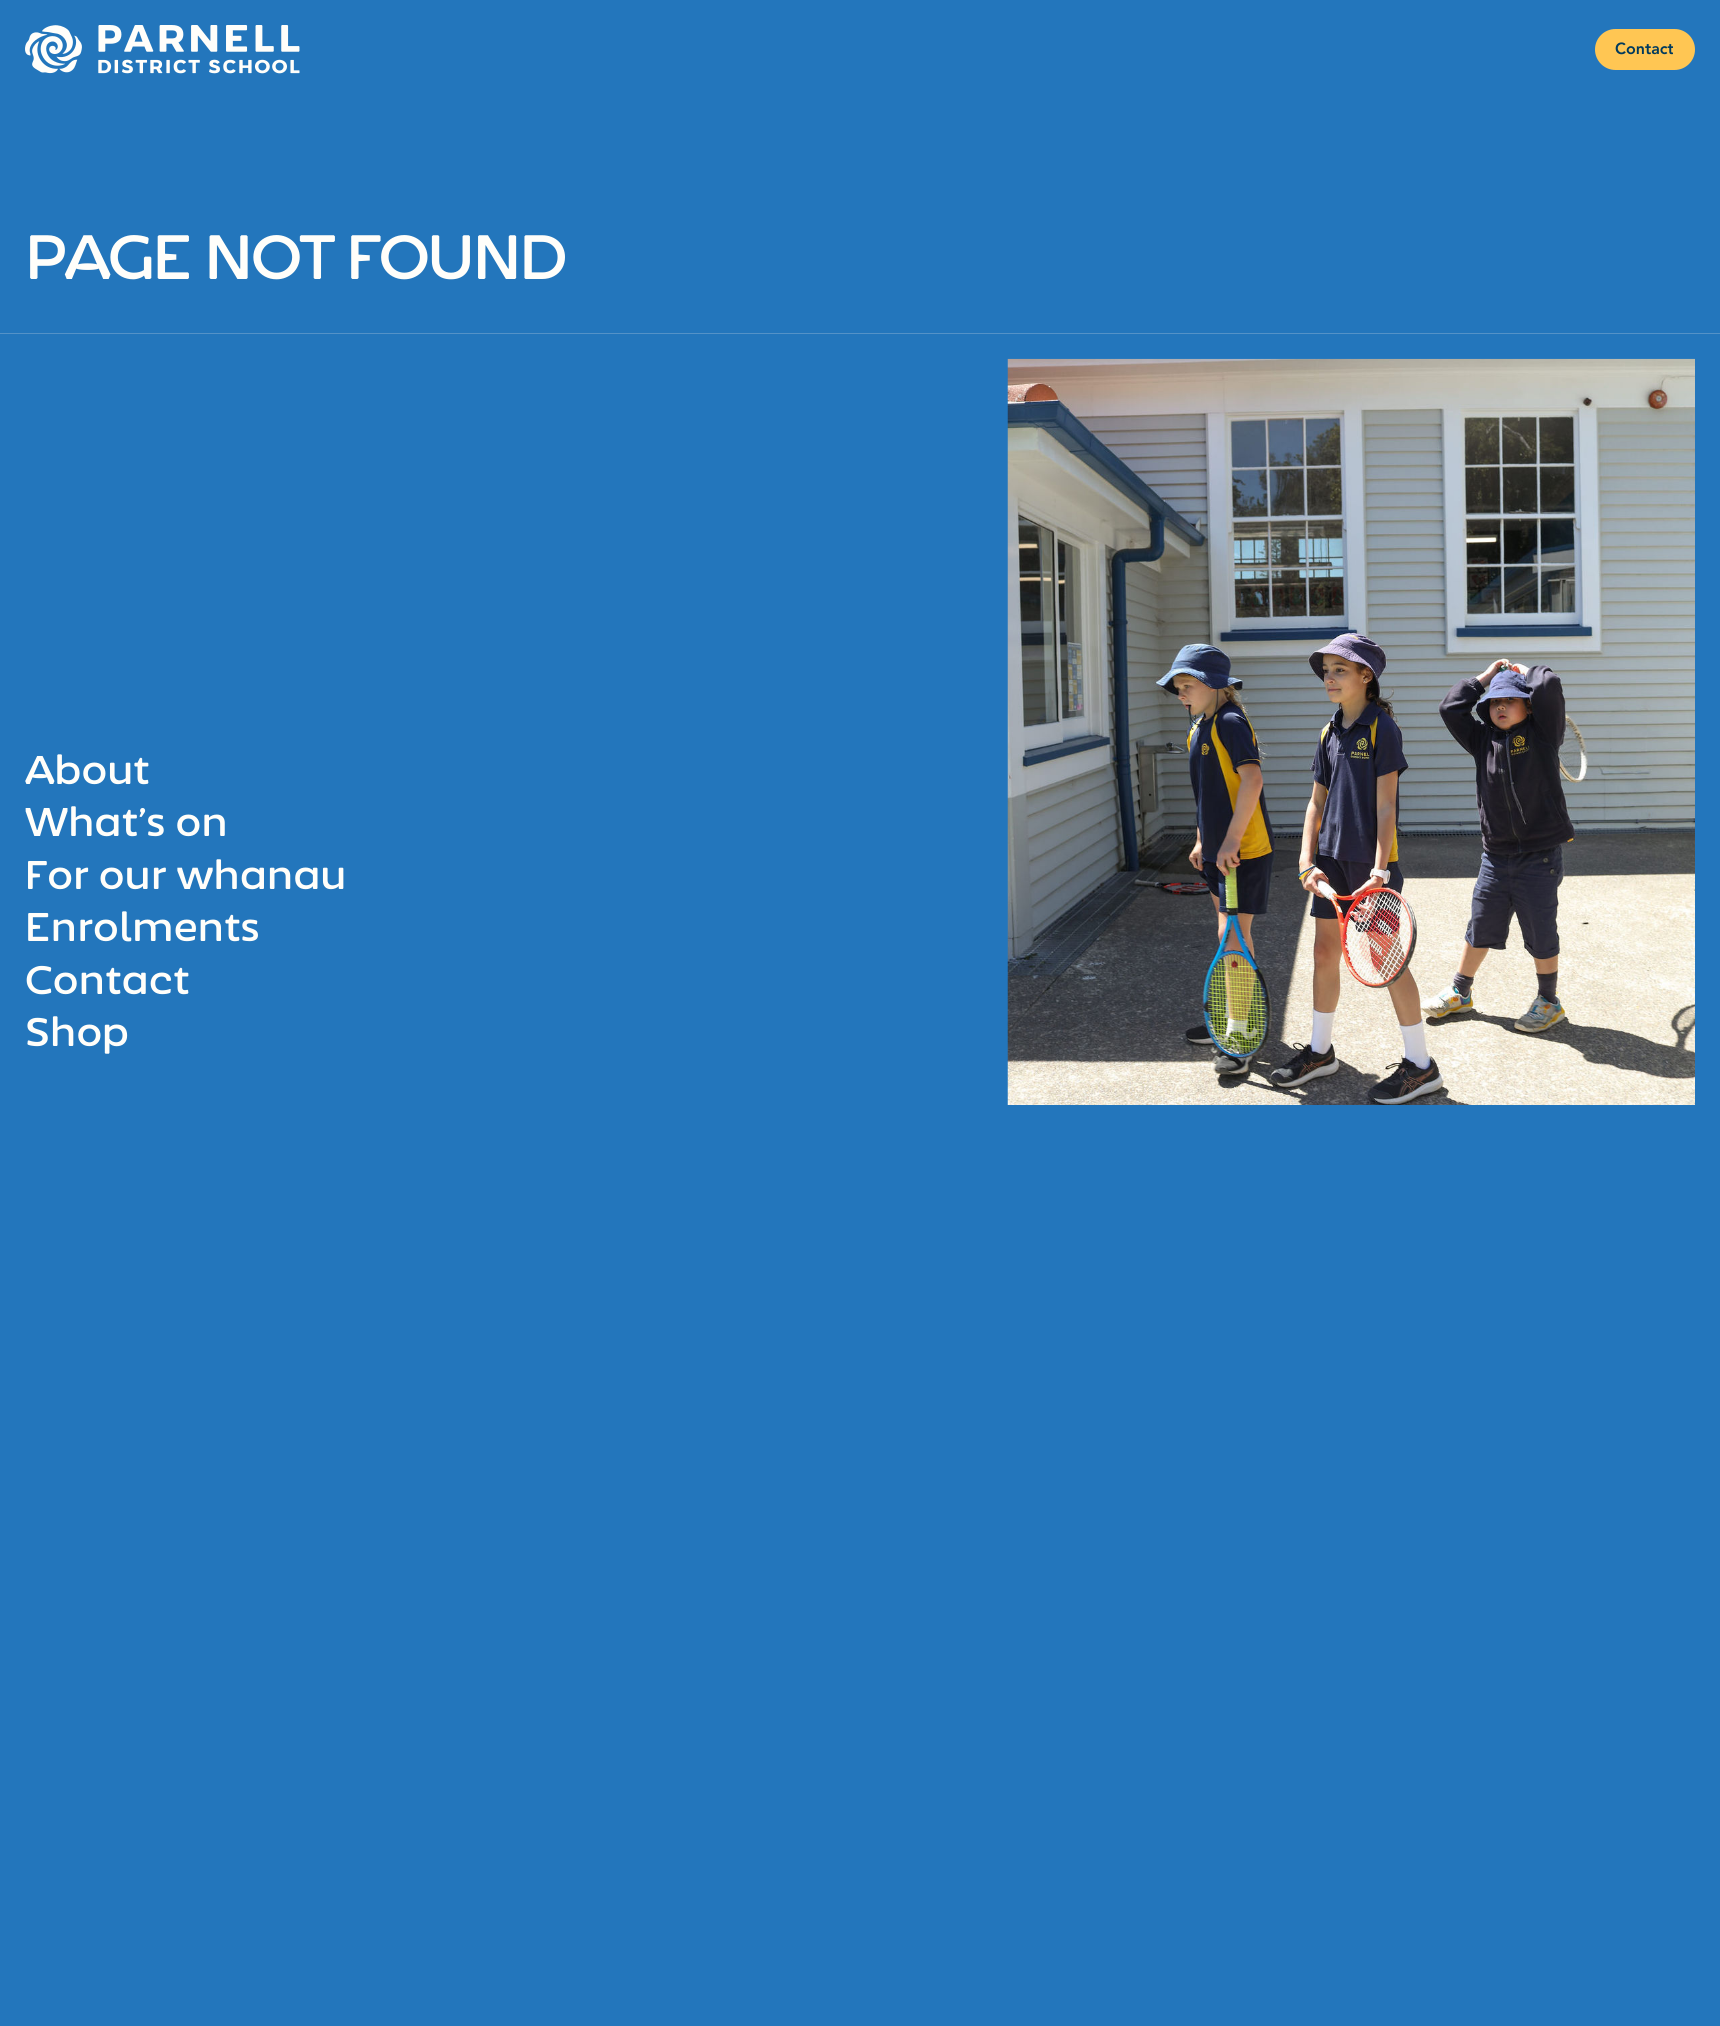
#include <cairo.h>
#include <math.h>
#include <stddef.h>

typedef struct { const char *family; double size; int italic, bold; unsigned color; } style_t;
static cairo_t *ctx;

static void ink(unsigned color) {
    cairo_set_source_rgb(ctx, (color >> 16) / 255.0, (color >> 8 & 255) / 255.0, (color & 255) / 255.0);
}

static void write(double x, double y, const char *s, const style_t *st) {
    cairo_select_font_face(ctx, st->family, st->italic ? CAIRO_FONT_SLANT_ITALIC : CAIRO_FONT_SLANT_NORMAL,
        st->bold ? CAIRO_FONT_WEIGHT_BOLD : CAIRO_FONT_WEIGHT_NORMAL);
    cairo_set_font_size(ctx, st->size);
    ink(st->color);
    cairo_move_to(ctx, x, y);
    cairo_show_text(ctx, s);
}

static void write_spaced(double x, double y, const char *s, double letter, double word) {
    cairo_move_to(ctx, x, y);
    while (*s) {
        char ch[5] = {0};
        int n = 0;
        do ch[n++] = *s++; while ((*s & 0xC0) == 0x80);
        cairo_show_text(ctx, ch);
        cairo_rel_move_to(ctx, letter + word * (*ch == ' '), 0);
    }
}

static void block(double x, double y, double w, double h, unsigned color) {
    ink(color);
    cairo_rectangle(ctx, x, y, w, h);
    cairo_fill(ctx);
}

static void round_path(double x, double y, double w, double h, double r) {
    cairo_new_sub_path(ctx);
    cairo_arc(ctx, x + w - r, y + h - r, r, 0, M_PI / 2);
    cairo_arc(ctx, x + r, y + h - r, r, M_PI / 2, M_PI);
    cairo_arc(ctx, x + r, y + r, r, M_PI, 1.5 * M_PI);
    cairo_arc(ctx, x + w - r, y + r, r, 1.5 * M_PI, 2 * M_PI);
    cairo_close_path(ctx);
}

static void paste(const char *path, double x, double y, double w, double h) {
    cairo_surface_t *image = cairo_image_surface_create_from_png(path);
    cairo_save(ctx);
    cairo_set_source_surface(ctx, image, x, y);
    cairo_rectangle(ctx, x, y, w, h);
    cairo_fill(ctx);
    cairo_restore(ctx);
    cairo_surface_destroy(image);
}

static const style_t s1 = {"Avenir Black", 16, 0, 0, 0x003a5d};

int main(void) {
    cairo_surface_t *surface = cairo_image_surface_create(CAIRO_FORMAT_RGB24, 1720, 2026);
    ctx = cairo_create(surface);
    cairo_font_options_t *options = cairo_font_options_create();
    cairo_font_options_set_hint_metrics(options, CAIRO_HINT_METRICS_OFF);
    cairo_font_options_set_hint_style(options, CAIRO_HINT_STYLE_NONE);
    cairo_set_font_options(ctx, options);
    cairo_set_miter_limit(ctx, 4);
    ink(0x2376bc);
    cairo_paint(ctx);
    paste("pic1.png", 25, 25, 275, 49);
    ink(0xffc653);
    round_path(1595, 29, 100, 41, 20.5);
    cairo_fill(ctx);
    write(1615, 54, "Contact", &s1);
    block(0, 333, 1720, 1, 0x5492c7);
    cairo_select_font_face(ctx, "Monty", CAIRO_FONT_SLANT_NORMAL, CAIRO_FONT_WEIGHT_NORMAL);
    cairo_set_font_size(ctx, 62.5);
    ink(0xfffefa);
    write_spaced(25, 279, "PAGE NOT FOUND", -2.5, 0);
    cairo_set_font_size(ctx, 40);
    write_spaced(25, 784, "About", -0.1, 0);
    write_spaced(25, 836, "What’s on", -0.1, 0);
    write_spaced(25, 889, "For our whanau", -0.1, 0);
    write_spaced(25, 941, "Enrolments", -0.1, 0);
    write_spaced(25, 994, "Contact", -0.1, 0);
    write_spaced(25, 1046, "Shop", -0.1, 0);
    paste("pic2.png", 1007, 358, 688, 747);
    cairo_surface_write_to_png(surface, "screenshot.png");
    cairo_font_options_destroy(options);
    cairo_destroy(ctx);
    cairo_surface_destroy(surface);
    return 0;
}
